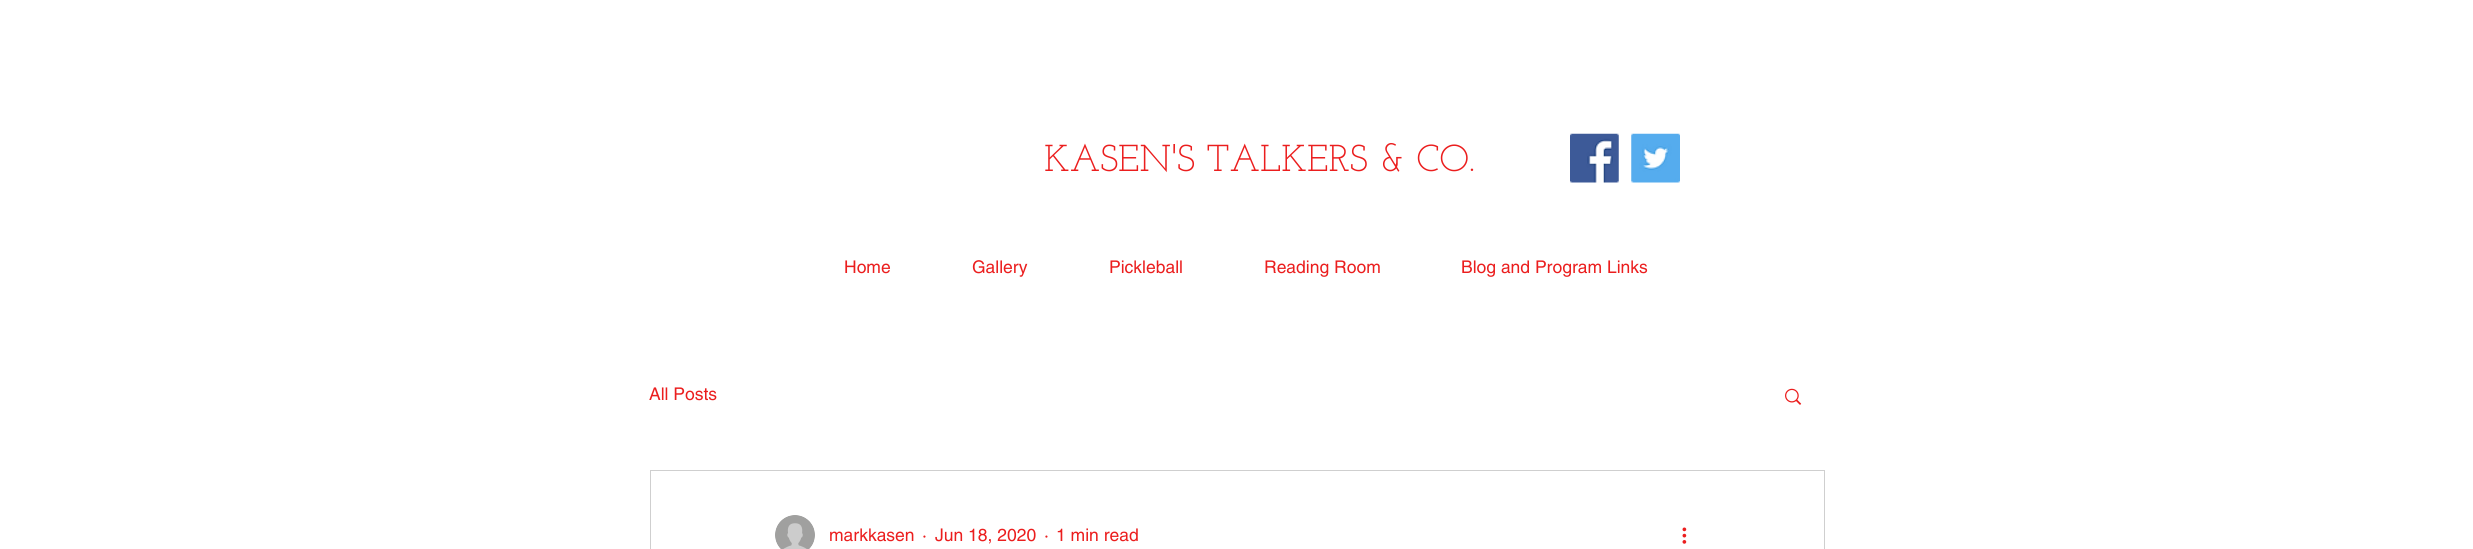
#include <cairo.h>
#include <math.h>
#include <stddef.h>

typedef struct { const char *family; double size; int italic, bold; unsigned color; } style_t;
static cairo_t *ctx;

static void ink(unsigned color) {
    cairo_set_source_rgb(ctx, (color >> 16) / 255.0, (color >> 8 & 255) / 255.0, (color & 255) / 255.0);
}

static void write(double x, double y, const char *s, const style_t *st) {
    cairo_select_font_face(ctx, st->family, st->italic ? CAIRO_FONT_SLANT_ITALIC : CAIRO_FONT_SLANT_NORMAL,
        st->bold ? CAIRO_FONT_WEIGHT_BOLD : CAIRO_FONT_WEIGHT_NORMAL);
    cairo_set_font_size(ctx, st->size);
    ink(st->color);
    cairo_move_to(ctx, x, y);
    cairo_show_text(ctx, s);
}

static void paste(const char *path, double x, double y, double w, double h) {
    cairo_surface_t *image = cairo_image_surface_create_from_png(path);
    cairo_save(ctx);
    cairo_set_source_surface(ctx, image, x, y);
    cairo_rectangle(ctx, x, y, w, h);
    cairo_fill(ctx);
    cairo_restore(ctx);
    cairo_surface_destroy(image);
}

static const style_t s1 = {"Josefin Slab", 37.5, 0, 0, 0xeb1e1e};
static const style_t s2 = {"helvetica", 17.5, 0, 0, 0xeb1e1e};

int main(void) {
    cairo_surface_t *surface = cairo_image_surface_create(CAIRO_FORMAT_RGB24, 2473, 549);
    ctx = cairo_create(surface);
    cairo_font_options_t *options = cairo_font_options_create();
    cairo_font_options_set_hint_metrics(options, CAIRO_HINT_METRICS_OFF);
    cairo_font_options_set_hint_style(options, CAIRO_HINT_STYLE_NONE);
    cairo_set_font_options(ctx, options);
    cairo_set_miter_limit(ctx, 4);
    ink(0xffffff);
    cairo_paint(ctx);
    write(1044, 171, "KASEN'S TALKERS & CO.", &s1);
    paste("pic1.png", 1570, 133, 49, 50);
    paste("pic2.png", 1631, 133, 49, 50);
    write(844, 273, "Home", &s2);
    write(972, 273, "Gallery", &s2);
    write(1109, 273, "Pickleball", &s2);
    write(1264, 273, "Reading Room", &s2);
    write(1461, 273, "Blog and Program Links", &s2);
    write(649, 400, "All Posts", &s2);
    paste("pic3.png", 1785, 388, 17, 17);
    cairo_rectangle(ctx, 650.5, 470.5, 1174, 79);
    ink(0xcfcfcf);
    cairo_set_line_width(ctx, 1);
    cairo_stroke(ctx);
    paste("pic4.png", 775, 515, 40, 34);
    write(829, 541, "markkasen", &s2);
    write(922, 541, "·", &s2);
    write(935, 541, "Jun 18, 2020", &s2);
    write(1044, 541, "·", &s2);
    write(1056, 541, "1 min read", &s2);
    paste("pic5.png", 1682, 527, 5, 17);
    cairo_surface_write_to_png(surface, "screenshot.png");
    cairo_font_options_destroy(options);
    cairo_destroy(ctx);
    cairo_surface_destroy(surface);
    return 0;
}
